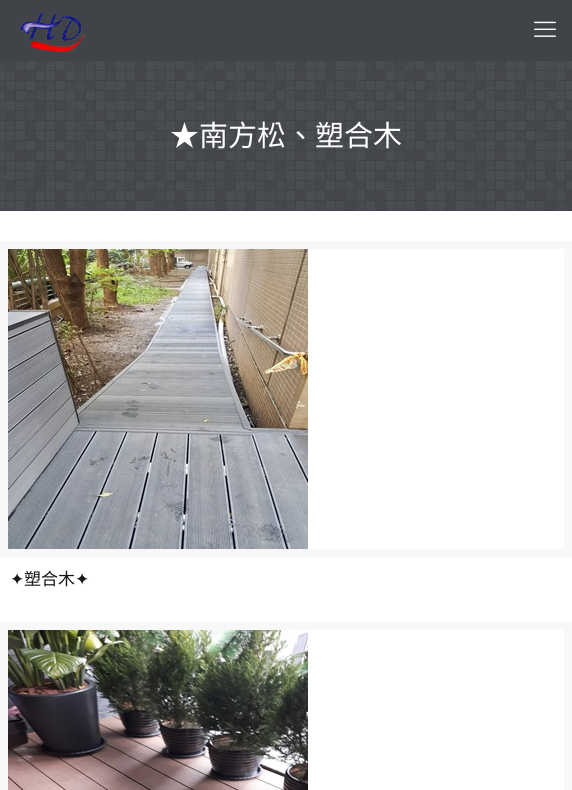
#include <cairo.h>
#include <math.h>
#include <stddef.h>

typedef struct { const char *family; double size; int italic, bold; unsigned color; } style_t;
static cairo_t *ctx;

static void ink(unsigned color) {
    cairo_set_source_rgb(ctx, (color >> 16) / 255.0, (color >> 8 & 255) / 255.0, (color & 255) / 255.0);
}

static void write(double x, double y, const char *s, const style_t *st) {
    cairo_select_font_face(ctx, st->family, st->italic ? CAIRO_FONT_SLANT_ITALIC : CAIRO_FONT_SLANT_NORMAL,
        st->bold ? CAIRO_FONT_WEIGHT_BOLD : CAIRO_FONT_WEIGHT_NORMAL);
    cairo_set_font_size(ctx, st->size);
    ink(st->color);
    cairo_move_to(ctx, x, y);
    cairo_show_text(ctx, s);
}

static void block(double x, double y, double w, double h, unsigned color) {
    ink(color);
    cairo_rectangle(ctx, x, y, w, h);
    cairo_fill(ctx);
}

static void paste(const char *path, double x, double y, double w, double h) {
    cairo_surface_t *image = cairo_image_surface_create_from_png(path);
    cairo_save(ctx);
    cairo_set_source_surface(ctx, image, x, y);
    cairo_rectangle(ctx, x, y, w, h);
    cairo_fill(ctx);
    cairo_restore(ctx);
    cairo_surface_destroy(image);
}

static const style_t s1 = {"Noto Sans CJK TC", 29, 0, 0, 0xffffff};
static const style_t s2 = {"DejaVu Sans", 17, 0, 0, 0x171717};
static const style_t s3 = {"Noto Sans CJK TC", 17, 0, 0, 0x171717};

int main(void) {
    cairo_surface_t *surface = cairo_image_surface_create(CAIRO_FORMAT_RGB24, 572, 790);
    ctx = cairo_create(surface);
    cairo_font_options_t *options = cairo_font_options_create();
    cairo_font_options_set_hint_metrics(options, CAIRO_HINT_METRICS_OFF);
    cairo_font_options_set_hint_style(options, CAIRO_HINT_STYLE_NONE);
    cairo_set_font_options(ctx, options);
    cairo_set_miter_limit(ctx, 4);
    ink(0xffffff);
    cairo_paint(ctx);
    paste("pic1.png", 0, 61, 572, 150);
    block(0, 0, 572, 61, 0x404348);
    paste("pic2.png", 20, 12, 65, 40);
    paste("pic3.png", 534, 21, 22, 16);
    write(170, 146, "★南方松、塑合木", &s1);
    cairo_rectangle(ctx, 4, 245, 564, 308);
    ink(0xf8f8f8);
    cairo_set_line_width(ctx, 8);
    cairo_stroke(ctx);
    paste("pic4.png", 8, 249, 300, 300);
    write(10, 585, "✦", &s2);
    write(24, 585, "塑合木", &s3);
    write(75, 585, "✦", &s2);
    cairo_rectangle(ctx, 4, 626, 564, 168);
    ink(0xf8f8f8);
    cairo_stroke(ctx);
    paste("pic5.png", 8, 630, 300, 160);
    cairo_surface_write_to_png(surface, "screenshot.png");
    cairo_font_options_destroy(options);
    cairo_destroy(ctx);
    cairo_surface_destroy(surface);
    return 0;
}
